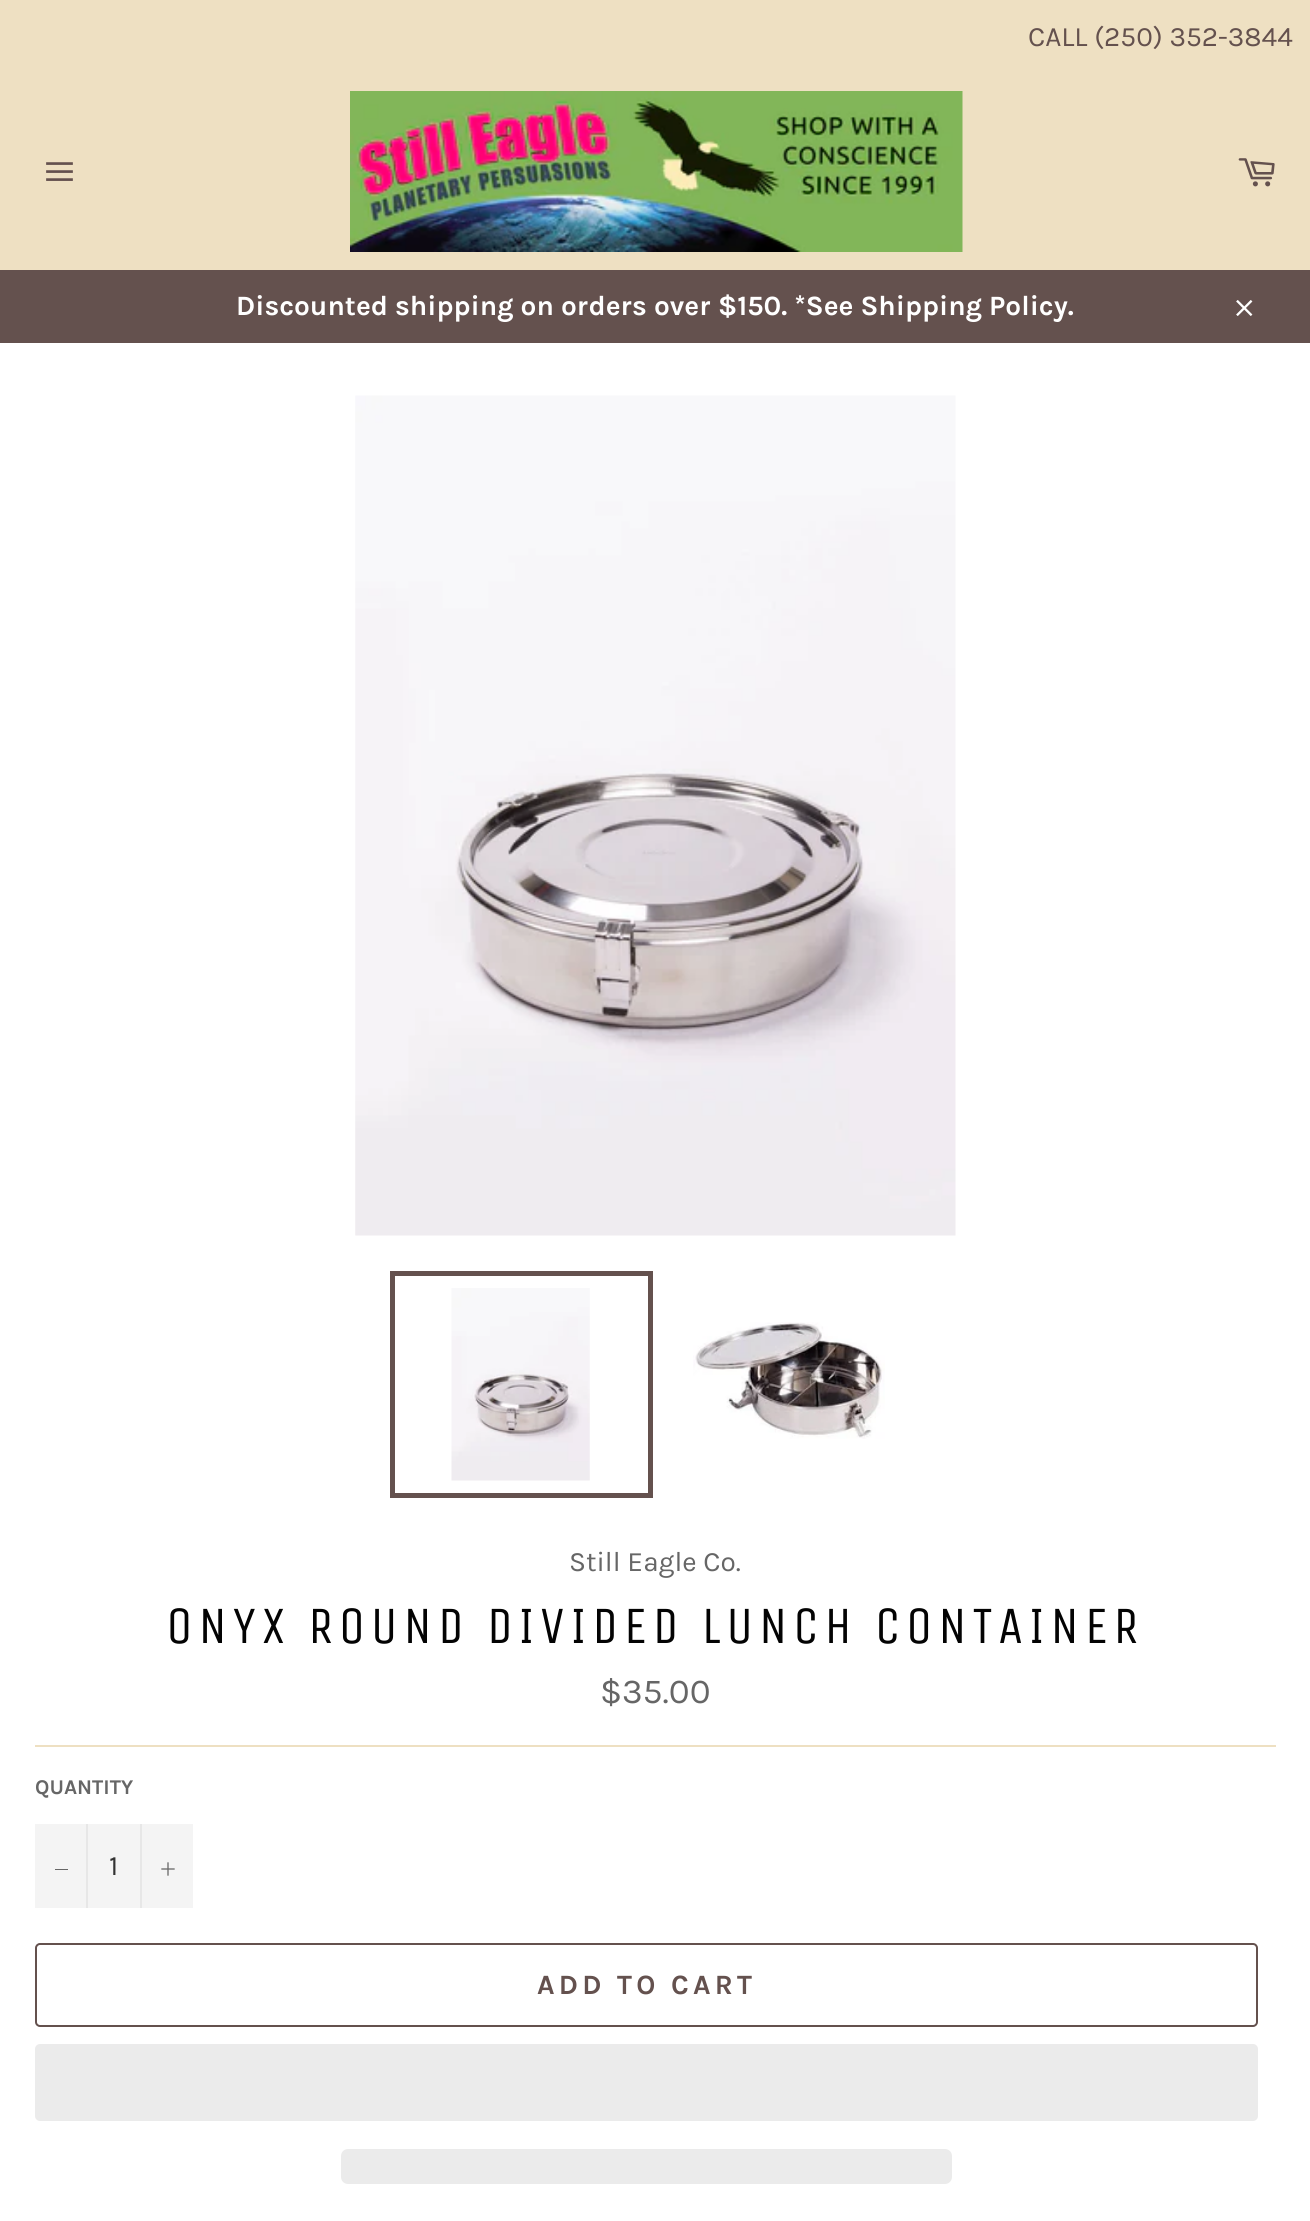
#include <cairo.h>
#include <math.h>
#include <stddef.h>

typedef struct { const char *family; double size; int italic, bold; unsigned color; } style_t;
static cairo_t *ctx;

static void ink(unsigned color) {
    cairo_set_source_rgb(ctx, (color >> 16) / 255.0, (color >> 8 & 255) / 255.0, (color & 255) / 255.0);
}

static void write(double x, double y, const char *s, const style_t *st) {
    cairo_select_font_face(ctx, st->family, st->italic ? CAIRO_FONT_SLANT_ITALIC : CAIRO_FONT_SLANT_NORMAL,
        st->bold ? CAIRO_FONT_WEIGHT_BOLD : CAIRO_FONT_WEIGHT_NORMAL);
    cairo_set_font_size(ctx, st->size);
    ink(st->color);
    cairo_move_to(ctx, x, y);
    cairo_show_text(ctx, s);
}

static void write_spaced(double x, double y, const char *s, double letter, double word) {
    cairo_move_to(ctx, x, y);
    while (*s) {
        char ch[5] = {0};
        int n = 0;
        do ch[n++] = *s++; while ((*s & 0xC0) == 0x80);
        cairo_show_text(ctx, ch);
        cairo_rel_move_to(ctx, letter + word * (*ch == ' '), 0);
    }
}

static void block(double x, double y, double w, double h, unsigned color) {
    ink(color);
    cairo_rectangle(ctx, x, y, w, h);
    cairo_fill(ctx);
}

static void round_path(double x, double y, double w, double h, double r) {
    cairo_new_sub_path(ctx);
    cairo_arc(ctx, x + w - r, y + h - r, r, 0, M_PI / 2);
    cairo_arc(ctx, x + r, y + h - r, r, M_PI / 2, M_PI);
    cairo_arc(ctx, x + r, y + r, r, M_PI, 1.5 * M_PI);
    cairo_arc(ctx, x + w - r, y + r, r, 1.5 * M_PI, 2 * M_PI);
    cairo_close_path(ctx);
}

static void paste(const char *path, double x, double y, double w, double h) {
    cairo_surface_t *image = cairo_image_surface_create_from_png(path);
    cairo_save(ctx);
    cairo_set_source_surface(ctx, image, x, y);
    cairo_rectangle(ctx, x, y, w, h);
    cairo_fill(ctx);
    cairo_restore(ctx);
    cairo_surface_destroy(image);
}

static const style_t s1 = {"Karla", 28, 0, 0, 0x64514e};
static const style_t s2 = {"Karla", 28, 0, 1, 0xffffff};
static const style_t s3 = {"Karla", 28, 0, 0, 0x666666};
static const style_t s4 = {"Karla", 35, 0, 0, 0x666666};
static const style_t s5 = {"Karla", 21, 0, 1, 0x666666};
static const style_t s6 = {"Karla", 28, 0, 0, 0x333333};

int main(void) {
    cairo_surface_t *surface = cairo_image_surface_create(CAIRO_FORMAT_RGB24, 1310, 2221);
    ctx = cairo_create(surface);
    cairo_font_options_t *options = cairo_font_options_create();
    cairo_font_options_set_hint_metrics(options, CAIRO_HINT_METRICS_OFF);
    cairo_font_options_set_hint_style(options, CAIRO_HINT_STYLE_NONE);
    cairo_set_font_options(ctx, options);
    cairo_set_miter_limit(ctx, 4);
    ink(0xeee0c2);
    cairo_paint(ctx);
    write(1028, 46, "CALL (250) 352-3844", &s1);
    paste("pic1.png", 46, 162, 27, 19);
    paste("pic2.png", 350, 91, 613, 161);
    paste("pic3.png", 1238, 158, 37, 29);
    block(0, 270, 1310, 73, 0x64514e);
    write(236, 315, "Discounted shipping on orders over $150. *See Shipping Policy.", &s2);
    paste("pic4.png", 1236, 300, 17, 16);
    block(0, 343, 1310, 1878, 0xffffff);
    paste("pic5.png", 355, 395, 601, 841);
    paste("pic6.png", 451, 1288, 139, 193);
    cairo_rectangle(ctx, 392.5, 1273.5, 258, 222);
    ink(0x64514e);
    cairo_set_line_width(ctx, 5);
    cairo_stroke(ctx);
    paste("pic7.png", 693, 1322, 192, 117);
    write(569, 1571, "Still Eagle Co.", &s3);
    cairo_select_font_face(ctx, "Unica One", CAIRO_FONT_SLANT_NORMAL, CAIRO_FONT_WEIGHT_NORMAL);
    cairo_set_font_size(ctx, 52.5);
    ink(0x030303);
    write_spaced(166, 1643, "ONYX ROUND DIVIDED LUNCH CONTAINER", 5.25, 0);
    write(600, 1703, "$35.00", &s4);
    block(35, 1745, 1241, 2, 0xeee0c2);
    write(35, 1794, "QUANTITY", &s5);
    block(35, 1824, 158, 84, 0xf4f4f4);
    block(86, 1824, 2, 84, 0xe7e7e7);
    block(55, 1869, 13, 1, 0x666666);
    write(109, 1875, "1", &s6);
    block(140, 1824, 2, 84, 0xe7e7e7);
    paste("pic8.png", 161, 1862, 14, 14);
    round_path(36, 1944, 1221, 82, 4);
    ink(0x64514e);
    cairo_set_line_width(ctx, 2);
    cairo_stroke(ctx);
    cairo_select_font_face(ctx, "Karla", CAIRO_FONT_SLANT_NORMAL, CAIRO_FONT_WEIGHT_BOLD);
    write_spaced(537, 1994, "ADD TO CART", 4.25, 0);
    ink(0xebebeb);
    round_path(35, 2044, 1223, 77, 5);
    cairo_fill(ctx);
    round_path(341, 2149, 611, 35, 7);
    cairo_fill(ctx);
    cairo_surface_write_to_png(surface, "screenshot.png");
    cairo_font_options_destroy(options);
    cairo_destroy(ctx);
    cairo_surface_destroy(surface);
    return 0;
}
